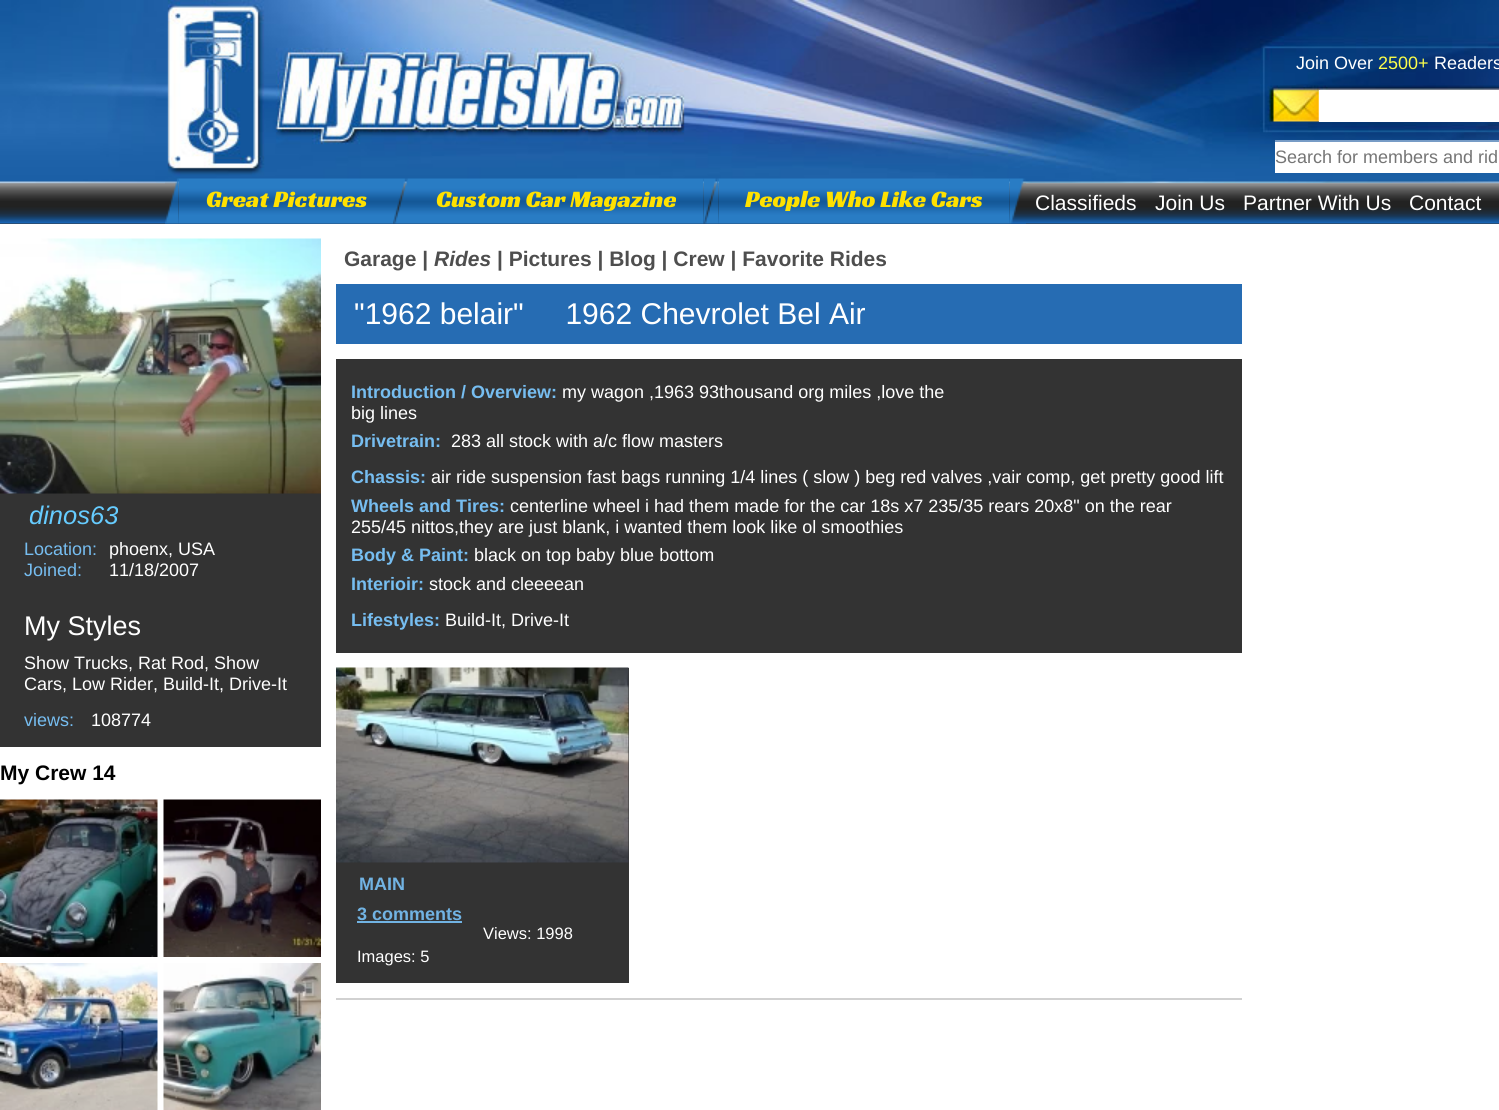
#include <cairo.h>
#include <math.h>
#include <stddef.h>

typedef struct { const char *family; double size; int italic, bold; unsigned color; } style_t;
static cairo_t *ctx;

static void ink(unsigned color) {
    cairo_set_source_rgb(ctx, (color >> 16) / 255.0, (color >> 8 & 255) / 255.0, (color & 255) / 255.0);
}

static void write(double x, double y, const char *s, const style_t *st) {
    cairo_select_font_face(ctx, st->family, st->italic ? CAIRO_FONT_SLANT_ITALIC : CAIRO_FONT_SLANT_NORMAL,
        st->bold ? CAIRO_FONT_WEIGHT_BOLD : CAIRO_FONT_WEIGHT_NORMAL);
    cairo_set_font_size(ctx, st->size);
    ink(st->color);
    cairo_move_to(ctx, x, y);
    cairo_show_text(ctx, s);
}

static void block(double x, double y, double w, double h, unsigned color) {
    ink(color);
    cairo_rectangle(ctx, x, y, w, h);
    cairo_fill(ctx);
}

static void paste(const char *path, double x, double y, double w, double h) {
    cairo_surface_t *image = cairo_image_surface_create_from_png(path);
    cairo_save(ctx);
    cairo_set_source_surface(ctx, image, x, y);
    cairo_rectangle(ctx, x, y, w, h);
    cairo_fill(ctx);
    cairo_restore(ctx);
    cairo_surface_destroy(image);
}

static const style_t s1 = {"Liberation Sans", 18, 0, 0, 0xffffff};
static const style_t s2 = {"Liberation Sans", 18, 0, 0, 0xfcff4b};
static const style_t s3 = {"Liberation Sans", 18, 0, 0, 0x757575};
static const style_t s4 = {"Racing Sans One", 24, 0, 0, 0xffe100};
static const style_t s5 = {"Liberation Sans", 21, 0, 0, 0xffffff};
static const style_t s6 = {"Liberation Sans", 25.5, 1, 0, 0x66ccff};
static const style_t s7 = {"Liberation Sans", 18, 0, 0, 0x76bdf0};
static const style_t s8 = {"Liberation Sans", 27, 0, 0, 0xffffff};
static const style_t s9 = {"Liberation Sans", 21, 0, 1, 0x000000};
static const style_t s10 = {"Liberation Sans", 21, 0, 1, 0x4e4e4e};
static const style_t s11 = {"Liberation Sans", 21, 1, 1, 0x4e4e4e};
static const style_t s12 = {"Liberation Sans", 30, 0, 0, 0xffffff};
static const style_t s13 = {"Liberation Sans", 18, 0, 1, 0x76bdf0};
static const style_t s14 = {"Liberation Sans", 18, 0, 1, 0x71b3e3};
static const style_t s15 = {"Liberation Sans", 16.5, 0, 0, 0xffffff};

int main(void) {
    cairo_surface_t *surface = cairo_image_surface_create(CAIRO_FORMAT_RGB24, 1499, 1110);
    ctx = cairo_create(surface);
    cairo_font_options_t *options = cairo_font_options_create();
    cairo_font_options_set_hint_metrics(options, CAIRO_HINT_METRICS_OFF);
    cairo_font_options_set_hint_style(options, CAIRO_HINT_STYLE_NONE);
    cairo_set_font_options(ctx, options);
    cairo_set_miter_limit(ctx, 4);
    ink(0x393939);
    cairo_paint(ctx);
    paste("pic1.png", 0, 183, 1499, 41);
    paste("pic2.png", 0, 0, 1499, 183);
    write(1296, 69, "Join Over", &s1);
    write(1378, 69, "2500+", &s2);
    write(1434, 69, "Readers", &s1);
    paste("pic3.png", 1267, 85, 232, 37);
    block(1319, 90, 180, 32, 0xffffff);
    block(1275, 142, 224, 31, 0xffffff);
    block(1275, 140, 224, 2, 0x779cc6);
    write(1275, 163, "Search for members and rid", &s3);
    paste("pic4.png", 165, 178, 14, 46);
    paste("pic5.png", 178, 178, 215, 46);
    write(206, 207, "Great Pictures", &s4);
    paste("pic6.png", 393, 178, 15, 46);
    paste("pic7.png", 408, 178, 296, 46);
    write(436, 207, "Custom Car Magazine", &s4);
    paste("pic8.png", 703, 178, 16, 46);
    paste("pic9.png", 718, 178, 292, 46);
    write(745, 207, "People Who Like Cars", &s4);
    paste("pic10.png", 1009, 178, 17, 46);
    write(1035, 210, "Classifieds", &s5);
    write(1155, 210, "Join Us", &s5);
    write(1243, 210, "Partner With Us", &s5);
    write(1409, 210, "Contact", &s5);
    block(0, 224, 1499, 886, 0xffffff);
    block(0, 493, 321, 254, 0x333333);
    paste("pic11.png", 0, 238, 321, 256);
    write(29, 524, "dinos63", &s6);
    write(24, 555, "Location:", &s7);
    write(109, 555, "phoenx, USA", &s1);
    write(24, 576, "Joined:", &s7);
    write(109, 576, "11/18/2007", &s1);
    write(24, 635, "My Styles", &s8);
    write(24, 669, "Show Trucks, Rat Rod, Show", &s1);
    write(24, 690, "Cars, Low Rider, Build-It, Drive-It", &s1);
    write(24, 726, "views:", &s7);
    write(91, 726, "108774", &s1);
    write(0, 780, "My Crew 14", &s9);
    paste("pic12.png", 0, 799, 158, 158);
    paste("pic13.png", 163, 799, 158, 158);
    paste("pic14.png", 0, 963, 158, 147);
    paste("pic15.png", 163, 963, 158, 147);
    write(344, 266, "Garage |", &s10);
    write(434, 266, "Rides", &s11);
    write(497, 266, "| Pictures | Blog | Crew | Favorite Rides", &s10);
    block(336, 284, 906, 60, 0x266cb3);
    write(354, 324, "\"1962 belair\"     1962 Chevrolet Bel Air", &s12);
    block(336, 359, 906, 294, 0x333333);
    write(351, 398, "Introduction / Overview:", &s13);
    write(562, 398, "my wagon ,1963 93thousand org miles ,love the", &s1);
    write(351, 419, "big lines", &s1);
    write(351, 447, "Drivetrain:", &s13);
    write(451, 447, "283 all stock with a/c flow masters", &s1);
    write(351, 483, "Chassis:", &s13);
    write(431, 483, "air ride suspension fast bags running 1/4 lines ( slow ) beg red valves ,vair comp, get pretty good lift", &s1);
    write(351, 512, "Wheels and Tires:", &s13);
    write(510, 512, "centerline wheel i had them made for the car 18s x7 235/35 rears 20x8\" on the rear", &s1);
    write(351, 533, "255/45 nittos,they are just blank, i wanted them look like ol smoothies", &s1);
    write(351, 561, "Body & Paint:", &s13);
    write(474, 561, "black on top baby blue bottom", &s1);
    write(351, 590, "Interioir:", &s13);
    write(429, 590, "stock and cleeeean", &s1);
    write(351, 626, "Lifestyles:", &s13);
    write(445, 626, "Build-It, Drive-It", &s1);
    block(336, 668, 293, 315, 0x333333);
    paste("pic16.png", 336, 667, 293, 196);
    write(359, 890, "MAIN", &s14);
    write(357, 920, "3 comments", &s14);
    block(357, 921, 105, 2, 0x71b3e3);
    write(483, 939, "Views: 1998", &s15);
    write(357, 962, "Images: 5", &s15);
    block(336, 998, 906, 2, 0xd1d1d1);
    cairo_surface_write_to_png(surface, "screenshot.png");
    cairo_font_options_destroy(options);
    cairo_destroy(ctx);
    cairo_surface_destroy(surface);
    return 0;
}
